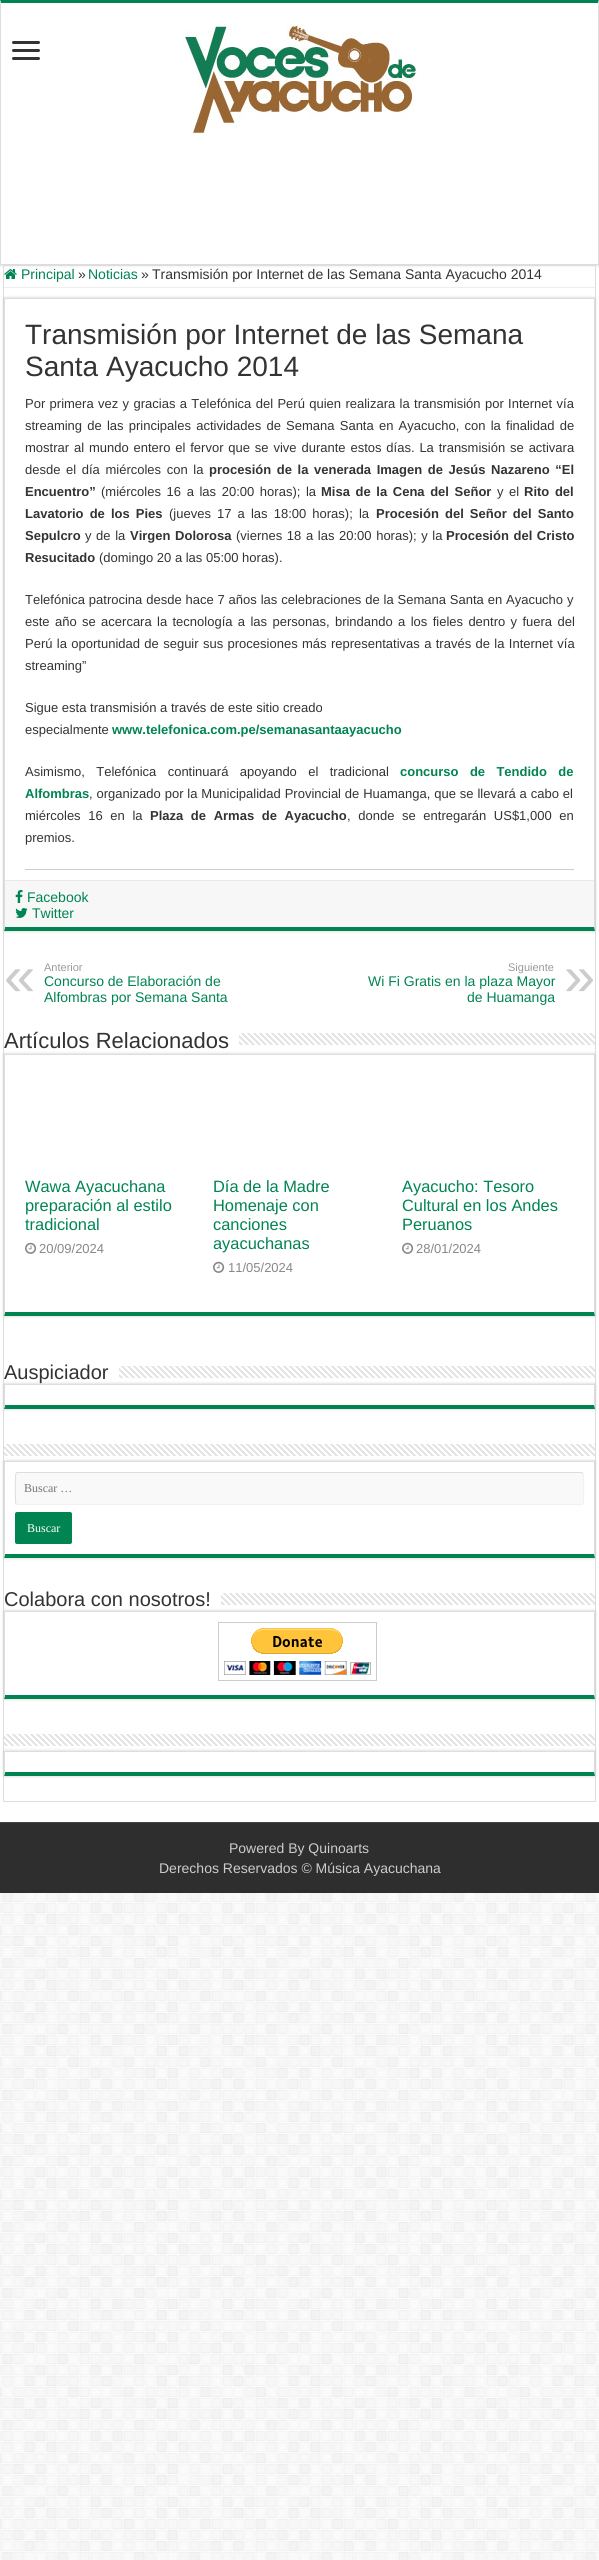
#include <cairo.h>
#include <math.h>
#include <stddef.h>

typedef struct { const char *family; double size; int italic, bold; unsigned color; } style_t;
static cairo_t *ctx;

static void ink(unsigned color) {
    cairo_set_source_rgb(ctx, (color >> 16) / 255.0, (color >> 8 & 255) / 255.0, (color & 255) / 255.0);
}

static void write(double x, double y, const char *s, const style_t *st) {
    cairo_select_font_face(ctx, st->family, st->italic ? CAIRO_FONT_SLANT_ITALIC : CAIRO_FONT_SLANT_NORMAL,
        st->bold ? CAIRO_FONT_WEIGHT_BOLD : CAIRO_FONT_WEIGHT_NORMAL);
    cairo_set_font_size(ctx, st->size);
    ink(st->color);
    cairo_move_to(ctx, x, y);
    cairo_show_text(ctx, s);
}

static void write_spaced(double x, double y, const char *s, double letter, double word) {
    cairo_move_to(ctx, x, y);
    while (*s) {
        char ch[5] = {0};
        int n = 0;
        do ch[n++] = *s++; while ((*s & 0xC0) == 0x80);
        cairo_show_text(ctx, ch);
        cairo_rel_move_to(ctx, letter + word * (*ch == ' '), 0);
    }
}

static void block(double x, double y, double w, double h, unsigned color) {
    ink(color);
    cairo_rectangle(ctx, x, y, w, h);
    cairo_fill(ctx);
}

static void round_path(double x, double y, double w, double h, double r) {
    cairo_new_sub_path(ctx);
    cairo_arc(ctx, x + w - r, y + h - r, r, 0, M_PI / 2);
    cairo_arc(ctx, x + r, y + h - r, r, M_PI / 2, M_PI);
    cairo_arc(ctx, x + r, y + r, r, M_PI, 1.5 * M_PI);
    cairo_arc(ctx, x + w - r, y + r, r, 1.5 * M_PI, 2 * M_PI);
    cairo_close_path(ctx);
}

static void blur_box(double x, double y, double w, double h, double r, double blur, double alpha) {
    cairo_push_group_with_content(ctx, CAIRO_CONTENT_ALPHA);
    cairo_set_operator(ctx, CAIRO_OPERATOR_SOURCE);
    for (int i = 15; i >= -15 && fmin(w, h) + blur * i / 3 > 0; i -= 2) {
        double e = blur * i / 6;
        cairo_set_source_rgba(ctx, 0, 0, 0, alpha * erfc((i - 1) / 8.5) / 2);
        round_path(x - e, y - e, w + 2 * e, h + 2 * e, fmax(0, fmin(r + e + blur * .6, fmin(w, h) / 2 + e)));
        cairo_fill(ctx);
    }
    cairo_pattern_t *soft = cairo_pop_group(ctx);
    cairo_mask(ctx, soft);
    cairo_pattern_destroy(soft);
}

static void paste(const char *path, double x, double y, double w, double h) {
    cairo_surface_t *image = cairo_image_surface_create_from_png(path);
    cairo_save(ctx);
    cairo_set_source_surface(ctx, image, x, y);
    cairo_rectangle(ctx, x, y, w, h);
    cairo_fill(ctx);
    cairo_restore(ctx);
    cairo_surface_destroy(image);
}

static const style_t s1 = {"Liberation Sans", 14, 0, 0, 0x008452};
static const style_t s2 = {"Liberation Sans", 14, 0, 0, 0x333333};
static const style_t s3 = {"Liberation Sans", 28, 0, 0, 0x333333};
static const style_t s4 = {"Liberation Sans", 13, 0, 1, 0x333333};
static const style_t s5 = {"Liberation Sans", 13, 0, 0, 0x333333};
static const style_t s6 = {"Liberation Sans", 13, 0, 1, 0x008452};
static const style_t s7 = {"Liberation Sans", 11, 0, 0, 0x999999};
static const style_t s8 = {"Liberation Sans", 56, 0, 0, 0xcccccc};
static const style_t s9 = {"Liberation Sans", 22, 0, 0, 0x333333};
static const style_t s10 = {"Liberation Sans", 16.4, 0, 0, 0x008452};
static const style_t s11 = {"Liberation Sans", 13, 0, 0, 0x888888};
static const style_t s12 = {"Liberation Sans", 20, 0, 0, 0x333333};
static const style_t s13 = {"Liberation Serif", 12, 0, 0, 0x757575};
static const style_t s14 = {"Liberation Serif", 12, 0, 0, 0xffffff};
static const style_t s15 = {"Liberation Sans", 14, 0, 0, 0xcccccc};

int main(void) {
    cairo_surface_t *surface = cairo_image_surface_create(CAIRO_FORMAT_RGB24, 599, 2560);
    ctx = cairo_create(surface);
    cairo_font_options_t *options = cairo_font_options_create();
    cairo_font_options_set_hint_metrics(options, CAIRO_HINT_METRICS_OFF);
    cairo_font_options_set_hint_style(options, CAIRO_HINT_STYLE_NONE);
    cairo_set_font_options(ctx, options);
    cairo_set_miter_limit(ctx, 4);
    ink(0xffffff);
    cairo_paint(ctx);
    paste("pic1.png", 0, 1893, 599, 667);
    cairo_save(ctx);
    cairo_rectangle(ctx, 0, 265, 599, 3);
    cairo_clip(ctx);
    ink(0xcacaca);
    blur_box(0, 0, 599, 265, 0, 1.5, 1);
    cairo_restore(ctx);
    ink(0x008452);
    cairo_new_path(ctx);
    cairo_move_to(ctx, 0, 0);
    cairo_line_to(ctx, 599, 0);
    cairo_line_to(ctx, 598, 3);
    cairo_line_to(ctx, 1, 3);
    cairo_close_path(ctx);
    cairo_fill(ctx);
    ink(0xdddddd);
    cairo_new_path(ctx);
    cairo_move_to(ctx, 599, 0);
    cairo_line_to(ctx, 599, 265);
    cairo_line_to(ctx, 598, 264);
    cairo_line_to(ctx, 598, 3);
    cairo_close_path(ctx);
    cairo_fill(ctx);
    block(0, 264, 599, 1, 0xdddddd);
    cairo_new_path(ctx);
    cairo_move_to(ctx, 0, 265);
    cairo_line_to(ctx, 0, 0);
    cairo_line_to(ctx, 1, 3);
    cairo_line_to(ctx, 1, 264);
    cairo_close_path(ctx);
    cairo_fill(ctx);
    ink(0x333333);
    round_path(12, 41, 28, 3, 1.5);
    cairo_fill(ctx);
    round_path(12, 49, 28, 3, 1.5);
    cairo_fill(ctx);
    round_path(12, 57, 28, 3, 1.5);
    cairo_fill(ctx);
    paste("pic2.png", 182, 23, 235, 111);
    cairo_rectangle(ctx, 3.5, 265.5, 592, 1536);
    ink(0xdddddd);
    cairo_set_line_width(ctx, 1);
    cairo_stroke(ctx);
    block(4, 287, 591, 1, 0xeeeeee);
    paste("pic3.png", 4, 269, 13, 10);
    write(21, 279, "Principal", &s1);
    write(78, 279, "»", &s2);
    write(88, 279, "Noticias", &s1);
    write(141, 279, "»", &s2);
    write(152, 279, "Transmisión por Internet de las Semana Santa Ayacucho 2014", &s2);
    cairo_save(ctx);
    cairo_set_fill_rule(ctx, CAIRO_FILL_RULE_EVEN_ODD);
    cairo_new_path(ctx);
    cairo_move_to(ctx, 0, 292);
    cairo_line_to(ctx, 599, 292);
    cairo_line_to(ctx, 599, 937);
    cairo_line_to(ctx, 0, 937);
    cairo_close_path(ctx);
    cairo_move_to(ctx, 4, 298);
    cairo_line_to(ctx, 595, 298);
    cairo_line_to(ctx, 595, 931);
    cairo_line_to(ctx, 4, 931);
    cairo_close_path(ctx);
    cairo_clip(ctx);
    ink(0xcacaca);
    blur_box(4, 298, 591, 633, 0, 1.5, 1);
    cairo_restore(ctx);
    block(4, 298, 591, 1, 0xdddddd);
    cairo_new_path(ctx);
    cairo_move_to(ctx, 595, 298);
    cairo_line_to(ctx, 595, 931);
    cairo_line_to(ctx, 594, 927);
    cairo_line_to(ctx, 594, 299);
    cairo_close_path(ctx);
    cairo_fill(ctx);
    ink(0x008452);
    cairo_new_path(ctx);
    cairo_move_to(ctx, 595, 931);
    cairo_line_to(ctx, 4, 931);
    cairo_line_to(ctx, 5, 927);
    cairo_line_to(ctx, 594, 927);
    cairo_close_path(ctx);
    cairo_fill(ctx);
    ink(0xdddddd);
    cairo_new_path(ctx);
    cairo_move_to(ctx, 4, 931);
    cairo_line_to(ctx, 4, 298);
    cairo_line_to(ctx, 5, 299);
    cairo_line_to(ctx, 5, 927);
    cairo_close_path(ctx);
    cairo_fill(ctx);
    write(25, 344, "Transmisión por Internet de las Semana", &s3);
    write(25, 376, "Santa Ayacucho 2014", &s3);
    cairo_set_font_size(ctx, 13);
    write_spaced(25, 408, "Por primera vez y gracias a Telefónica del Perú quien realizara la transmisión por Internet vía", 0, 0.75);
    write_spaced(25, 430, "streaming de las principales actividades de Semana Santa en Ayacucho, con la finalidad de", 0, 1.6);
    write_spaced(25, 452, "mostrar al mundo entero el fervor que se vive durante estos días. La transmisión se activara", 0, 1.25);
    write_spaced(25, 474, "desde el día miércoles con la", 0, 2);
    cairo_select_font_face(ctx, "Liberation Sans", CAIRO_FONT_SLANT_NORMAL, CAIRO_FONT_WEIGHT_BOLD);
    write_spaced(209, 474, "procesión de la venerada Imagen de Jesús Nazareno “El", 0, 2);
    write(25, 496, "Encuentro”", &s4);
    cairo_select_font_face(ctx, "Liberation Sans", CAIRO_FONT_SLANT_NORMAL, CAIRO_FONT_WEIGHT_NORMAL);
    write_spaced(101, 496, "(miércoles 16 a las 20:00 horas); la", 0, 2);
    cairo_select_font_face(ctx, "Liberation Sans", CAIRO_FONT_SLANT_NORMAL, CAIRO_FONT_WEIGHT_BOLD);
    write_spaced(321, 496, "Misa de la Cena del Señor", 0, 2);
    cairo_select_font_face(ctx, "Liberation Sans", CAIRO_FONT_SLANT_NORMAL, CAIRO_FONT_WEIGHT_NORMAL);
    write_spaced(497, 496, "y el", 0, 2);
    cairo_select_font_face(ctx, "Liberation Sans", CAIRO_FONT_SLANT_NORMAL, CAIRO_FONT_WEIGHT_BOLD);
    write_spaced(524, 496, "Rito del", 0, 2);
    write_spaced(25, 518, "Lavatorio de los Pies", 0, 2.5);
    cairo_select_font_face(ctx, "Liberation Sans", CAIRO_FONT_SLANT_NORMAL, CAIRO_FONT_WEIGHT_NORMAL);
    write_spaced(169, 518, "(jueves 17 a las 18:00 horas); la", 0, 2.5);
    cairo_select_font_face(ctx, "Liberation Sans", CAIRO_FONT_SLANT_NORMAL, CAIRO_FONT_WEIGHT_BOLD);
    write_spaced(376, 518, "Procesión del Señor del Santo", 0, 2.5);
    write(25, 540, "Sepulcro", &s4);
    cairo_select_font_face(ctx, "Liberation Sans", CAIRO_FONT_SLANT_NORMAL, CAIRO_FONT_WEIGHT_NORMAL);
    write_spaced(85, 540, "y de la", 0, 1);
    cairo_select_font_face(ctx, "Liberation Sans", CAIRO_FONT_SLANT_NORMAL, CAIRO_FONT_WEIGHT_BOLD);
    write_spaced(130, 540, "Virgen Dolorosa", 0, 1);
    cairo_select_font_face(ctx, "Liberation Sans", CAIRO_FONT_SLANT_NORMAL, CAIRO_FONT_WEIGHT_NORMAL);
    write_spaced(236, 540, "(viernes 18 a las 20:00 horas); y la", 0, 1);
    cairo_select_font_face(ctx, "Liberation Sans", CAIRO_FONT_SLANT_NORMAL, CAIRO_FONT_WEIGHT_BOLD);
    write_spaced(446, 540, "Procesión del Cristo", 0, 1);
    write(25, 562, "Resucitado", &s4);
    write(99, 562, "(domingo 20 a las 05:00 horas).", &s5);
    write_spaced(25, 604, "Telefónica patrocina desde hace 7 años las celebraciones de la Semana Santa en Ayacucho y", 0, 0.25);
    write_spaced(25, 626, "este año se acercara la tecnología a las personas, brindando a los fieles dentro y fuera del", 0, 1.75);
    write_spaced(25, 648, "Perú la oportunidad de seguir sus procesiones más representativas a través de la Internet vía", 0, 0.75);
    write(25, 670, "streaming”", &s5);
    write(25, 712, "Sigue esta transmisión a través de este sitio creado", &s5);
    write(25, 734, "especialmente", &s5);
    write(112, 734, "www.telefonica.com.pe/semanasantaayacucho", &s6);
    cairo_select_font_face(ctx, "Liberation Sans", CAIRO_FONT_SLANT_NORMAL, CAIRO_FONT_WEIGHT_NORMAL);
    ink(0x333333);
    write_spaced(25, 776, "Asimismo, Telefónica continuará apoyando el tradicional", 0, 7.75);
    cairo_select_font_face(ctx, "Liberation Sans", CAIRO_FONT_SLANT_NORMAL, CAIRO_FONT_WEIGHT_BOLD);
    ink(0x008452);
    write_spaced(400, 776, "concurso de Tendido de", 0, 7.75);
    write(25, 798, "Alfombras", &s6);
    cairo_select_font_face(ctx, "Liberation Sans", CAIRO_FONT_SLANT_NORMAL, CAIRO_FONT_WEIGHT_NORMAL);
    ink(0x333333);
    write_spaced(89, 798, ", organizado por la Municipalidad Provincial de Huamanga, que se llevará a cabo el", 0, 0.25);
    write_spaced(25, 820, "miércoles 16 en la", 0, 4);
    cairo_select_font_face(ctx, "Liberation Sans", CAIRO_FONT_SLANT_NORMAL, CAIRO_FONT_WEIGHT_BOLD);
    write_spaced(150, 820, "Plaza de Armas de Ayacucho", 0, 4);
    cairo_select_font_face(ctx, "Liberation Sans", CAIRO_FONT_SLANT_NORMAL, CAIRO_FONT_WEIGHT_NORMAL);
    write_spaced(347, 820, ", donde se entregarán US$1,000 en", 0, 4);
    write(25, 842, "premios.", &s5);
    block(25, 869, 549, 1, 0xcccccc);
    block(5, 881, 589, 46, 0xf7f7f7);
    block(5, 880, 589, 1, 0xeaeaea);
    paste("pic4.png", 15, 890, 8, 13);
    write(27, 902, "Facebook", &s1);
    paste("pic5.png", 15, 908, 13, 10);
    write(32, 918, "Twitter", &s1);
    write(44, 971, "Anterior", &s7);
    write(4, 995, "«", &s8);
    write(44, 986, "Concurso de Elaboración de", &s1);
    write(44, 1002, "Alfombras por Semana Santa", &s1);
    write(508, 971, "Siguiente", &s7);
    write(564, 995, "»", &s8);
    write(368, 986, "Wi Fi Gratis en la plaza Mayor", &s1);
    write(467, 1002, "de Huamanga", &s1);
    cairo_save(ctx);
    cairo_set_fill_rule(ctx, CAIRO_FILL_RULE_EVEN_ODD);
    cairo_new_path(ctx);
    cairo_move_to(ctx, 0, 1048);
    cairo_line_to(ctx, 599, 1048);
    cairo_line_to(ctx, 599, 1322);
    cairo_line_to(ctx, 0, 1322);
    cairo_close_path(ctx);
    cairo_move_to(ctx, 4, 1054);
    cairo_line_to(ctx, 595, 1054);
    cairo_line_to(ctx, 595, 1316);
    cairo_line_to(ctx, 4, 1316);
    cairo_close_path(ctx);
    cairo_clip(ctx);
    ink(0xcacaca);
    blur_box(4, 1054, 591, 262, 0, 1.5, 1);
    cairo_restore(ctx);
    write(4, 1048, "Artículos Relacionados", &s9);
    paste("pic6.png", 239, 1033, 356, 12);
    block(4, 1054, 591, 1, 0xdddddd);
    cairo_new_path(ctx);
    cairo_move_to(ctx, 595, 1054);
    cairo_line_to(ctx, 595, 1316);
    cairo_line_to(ctx, 594, 1312);
    cairo_line_to(ctx, 594, 1055);
    cairo_close_path(ctx);
    cairo_fill(ctx);
    ink(0x008452);
    cairo_new_path(ctx);
    cairo_move_to(ctx, 595, 1316);
    cairo_line_to(ctx, 4, 1316);
    cairo_line_to(ctx, 5, 1312);
    cairo_line_to(ctx, 594, 1312);
    cairo_close_path(ctx);
    cairo_fill(ctx);
    ink(0xdddddd);
    cairo_new_path(ctx);
    cairo_move_to(ctx, 4, 1316);
    cairo_line_to(ctx, 4, 1054);
    cairo_line_to(ctx, 5, 1055);
    cairo_line_to(ctx, 5, 1312);
    cairo_close_path(ctx);
    cairo_fill(ctx);
    write(25, 1192, "Wawa Ayacuchana", &s10);
    write(25, 1211, "preparación al estilo", &s10);
    write(25, 1230, "tradicional", &s10);
    paste("pic7.png", 25, 1242, 12, 12);
    write(39, 1253, "20/09/2024", &s11);
    write(213, 1192, "Día de la Madre", &s10);
    write(213, 1211, "Homenaje con", &s10);
    write(213, 1230, "canciones", &s10);
    write(213, 1249, "ayacuchanas", &s10);
    paste("pic7.png", 213, 1261, 12, 12);
    write(228, 1272, "11/05/2024", &s11);
    write(402, 1192, "Ayacucho: Tesoro", &s10);
    write(402, 1211, "Cultural en los Andes", &s10);
    write(402, 1230, "Peruanos", &s10);
    paste("pic7.png", 402, 1242, 12, 12);
    write(416, 1253, "28/01/2024", &s11);
    cairo_save(ctx);
    cairo_set_fill_rule(ctx, CAIRO_FILL_RULE_EVEN_ODD);
    cairo_new_path(ctx);
    cairo_move_to(ctx, 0, 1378);
    cairo_line_to(ctx, 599, 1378);
    cairo_line_to(ctx, 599, 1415);
    cairo_line_to(ctx, 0, 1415);
    cairo_close_path(ctx);
    cairo_move_to(ctx, 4, 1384);
    cairo_line_to(ctx, 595, 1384);
    cairo_line_to(ctx, 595, 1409);
    cairo_line_to(ctx, 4, 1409);
    cairo_close_path(ctx);
    cairo_clip(ctx);
    ink(0xcacaca);
    blur_box(4, 1384, 591, 25, 0, 1.5, 1);
    cairo_restore(ctx);
    write(4, 1379, "Auspiciador", &s12);
    paste("pic8.png", 119, 1366, 476, 12);
    block(4, 1384, 591, 1, 0xdddddd);
    cairo_new_path(ctx);
    cairo_move_to(ctx, 595, 1384);
    cairo_line_to(ctx, 595, 1409);
    cairo_line_to(ctx, 594, 1405);
    cairo_line_to(ctx, 594, 1385);
    cairo_close_path(ctx);
    cairo_fill(ctx);
    ink(0x008452);
    cairo_new_path(ctx);
    cairo_move_to(ctx, 595, 1409);
    cairo_line_to(ctx, 4, 1409);
    cairo_line_to(ctx, 5, 1405);
    cairo_line_to(ctx, 594, 1405);
    cairo_close_path(ctx);
    cairo_fill(ctx);
    ink(0xdddddd);
    cairo_new_path(ctx);
    cairo_move_to(ctx, 4, 1409);
    cairo_line_to(ctx, 4, 1384);
    cairo_line_to(ctx, 5, 1385);
    cairo_line_to(ctx, 5, 1405);
    cairo_close_path(ctx);
    cairo_fill(ctx);
    cairo_save(ctx);
    cairo_set_fill_rule(ctx, CAIRO_FILL_RULE_EVEN_ODD);
    cairo_new_path(ctx);
    cairo_move_to(ctx, 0, 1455);
    cairo_line_to(ctx, 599, 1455);
    cairo_line_to(ctx, 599, 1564);
    cairo_line_to(ctx, 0, 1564);
    cairo_close_path(ctx);
    cairo_move_to(ctx, 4, 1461);
    cairo_line_to(ctx, 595, 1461);
    cairo_line_to(ctx, 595, 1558);
    cairo_line_to(ctx, 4, 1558);
    cairo_close_path(ctx);
    cairo_clip(ctx);
    ink(0xcacaca);
    blur_box(4, 1461, 591, 97, 0, 1.5, 1);
    cairo_restore(ctx);
    paste("pic9.png", 4, 1444, 591, 12);
    block(4, 1461, 591, 1, 0xdddddd);
    cairo_new_path(ctx);
    cairo_move_to(ctx, 595, 1461);
    cairo_line_to(ctx, 595, 1558);
    cairo_line_to(ctx, 594, 1554);
    cairo_line_to(ctx, 594, 1462);
    cairo_close_path(ctx);
    cairo_fill(ctx);
    ink(0x008452);
    cairo_new_path(ctx);
    cairo_move_to(ctx, 595, 1558);
    cairo_line_to(ctx, 4, 1558);
    cairo_line_to(ctx, 5, 1554);
    cairo_line_to(ctx, 594, 1554);
    cairo_close_path(ctx);
    cairo_fill(ctx);
    ink(0xdddddd);
    cairo_new_path(ctx);
    cairo_move_to(ctx, 4, 1558);
    cairo_line_to(ctx, 4, 1461);
    cairo_line_to(ctx, 5, 1462);
    cairo_line_to(ctx, 5, 1554);
    cairo_close_path(ctx);
    cairo_fill(ctx);
    ink(0xf9f9f9);
    round_path(15, 1472, 569, 33, 3);
    cairo_fill(ctx);
    cairo_new_path(ctx);
    cairo_move_to(ctx, 583, 1473);
    cairo_curve_to(ctx, 584, 1474.5, 584, 1502, 583, 1503.5);
    cairo_line_to(ctx, 582, 1504.5);
    cairo_line_to(ctx, 299.5, 1504.5);
    cairo_line_to(ctx, 18, 1504.5);
    cairo_line_to(ctx, 16, 1504);
    ink(0xf1f1f1);
    cairo_stroke(ctx);
    cairo_new_path(ctx);
    cairo_move_to(ctx, 16, 1504);
    cairo_curve_to(ctx, 15, 1502.5, 15, 1475, 16, 1473.5);
    cairo_line_to(ctx, 17, 1472.5);
    cairo_line_to(ctx, 299.5, 1472.5);
    cairo_line_to(ctx, 581, 1472.5);
    cairo_line_to(ctx, 583, 1473);
    ink(0xdddddd);
    cairo_stroke(ctx);
    write(24, 1492, "Buscar …", &s13);
    ink(0x008452);
    round_path(15, 1512, 57, 32, 2);
    cairo_fill(ctx);
    write(27, 1532, "Buscar", &s14);
    cairo_save(ctx);
    cairo_set_fill_rule(ctx, CAIRO_FILL_RULE_EVEN_ODD);
    cairo_new_path(ctx);
    cairo_move_to(ctx, 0, 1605);
    cairo_line_to(ctx, 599, 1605);
    cairo_line_to(ctx, 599, 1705);
    cairo_line_to(ctx, 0, 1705);
    cairo_close_path(ctx);
    cairo_move_to(ctx, 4, 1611);
    cairo_line_to(ctx, 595, 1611);
    cairo_line_to(ctx, 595, 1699);
    cairo_line_to(ctx, 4, 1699);
    cairo_close_path(ctx);
    cairo_clip(ctx);
    ink(0xcacaca);
    blur_box(4, 1611, 591, 88, 0, 1.5, 1);
    cairo_restore(ctx);
    write(4, 1606, "Colabora con nosotros!", &s12);
    paste("pic10.png", 221, 1593, 374, 12);
    block(4, 1611, 591, 1, 0xdddddd);
    cairo_new_path(ctx);
    cairo_move_to(ctx, 595, 1611);
    cairo_line_to(ctx, 595, 1699);
    cairo_line_to(ctx, 594, 1695);
    cairo_line_to(ctx, 594, 1612);
    cairo_close_path(ctx);
    cairo_fill(ctx);
    ink(0x008452);
    cairo_new_path(ctx);
    cairo_move_to(ctx, 595, 1699);
    cairo_line_to(ctx, 4, 1699);
    cairo_line_to(ctx, 5, 1695);
    cairo_line_to(ctx, 594, 1695);
    cairo_close_path(ctx);
    cairo_fill(ctx);
    ink(0xdddddd);
    cairo_new_path(ctx);
    cairo_move_to(ctx, 4, 1699);
    cairo_line_to(ctx, 4, 1611);
    cairo_line_to(ctx, 5, 1612);
    cairo_line_to(ctx, 5, 1695);
    cairo_close_path(ctx);
    cairo_fill(ctx);
    cairo_rectangle(ctx, 218.5, 1622.5, 158, 58);
    ink(0xcccccc);
    cairo_stroke(ctx);
    paste("pic11.png", 224, 1628, 147, 47);
    cairo_save(ctx);
    cairo_set_fill_rule(ctx, CAIRO_FILL_RULE_EVEN_ODD);
    cairo_new_path(ctx);
    cairo_move_to(ctx, 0, 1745);
    cairo_line_to(ctx, 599, 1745);
    cairo_line_to(ctx, 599, 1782);
    cairo_line_to(ctx, 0, 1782);
    cairo_close_path(ctx);
    cairo_move_to(ctx, 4, 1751);
    cairo_line_to(ctx, 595, 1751);
    cairo_line_to(ctx, 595, 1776);
    cairo_line_to(ctx, 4, 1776);
    cairo_close_path(ctx);
    cairo_clip(ctx);
    ink(0xcacaca);
    blur_box(4, 1751, 591, 25, 0, 1.5, 1);
    cairo_restore(ctx);
    paste("pic9.png", 4, 1734, 591, 12);
    block(4, 1751, 591, 1, 0xdddddd);
    cairo_new_path(ctx);
    cairo_move_to(ctx, 595, 1751);
    cairo_line_to(ctx, 595, 1776);
    cairo_line_to(ctx, 594, 1772);
    cairo_line_to(ctx, 594, 1752);
    cairo_close_path(ctx);
    cairo_fill(ctx);
    ink(0x008452);
    cairo_new_path(ctx);
    cairo_move_to(ctx, 595, 1776);
    cairo_line_to(ctx, 4, 1776);
    cairo_line_to(ctx, 5, 1772);
    cairo_line_to(ctx, 594, 1772);
    cairo_close_path(ctx);
    cairo_fill(ctx);
    ink(0xdddddd);
    cairo_new_path(ctx);
    cairo_move_to(ctx, 4, 1776);
    cairo_line_to(ctx, 4, 1751);
    cairo_line_to(ctx, 5, 1752);
    cairo_line_to(ctx, 5, 1772);
    cairo_close_path(ctx);
    cairo_fill(ctx);
    block(0, 1823, 599, 70, 0x2e2e2e);
    block(0, 1822, 599, 1, 0x444444);
    write(229, 1853, "Powered By Quinoarts", &s15);
    write(159, 1873, "Derechos Reservados © Música Ayacuchana", &s15);
    cairo_surface_write_to_png(surface, "screenshot.png");
    cairo_font_options_destroy(options);
    cairo_destroy(ctx);
    cairo_surface_destroy(surface);
    return 0;
}
